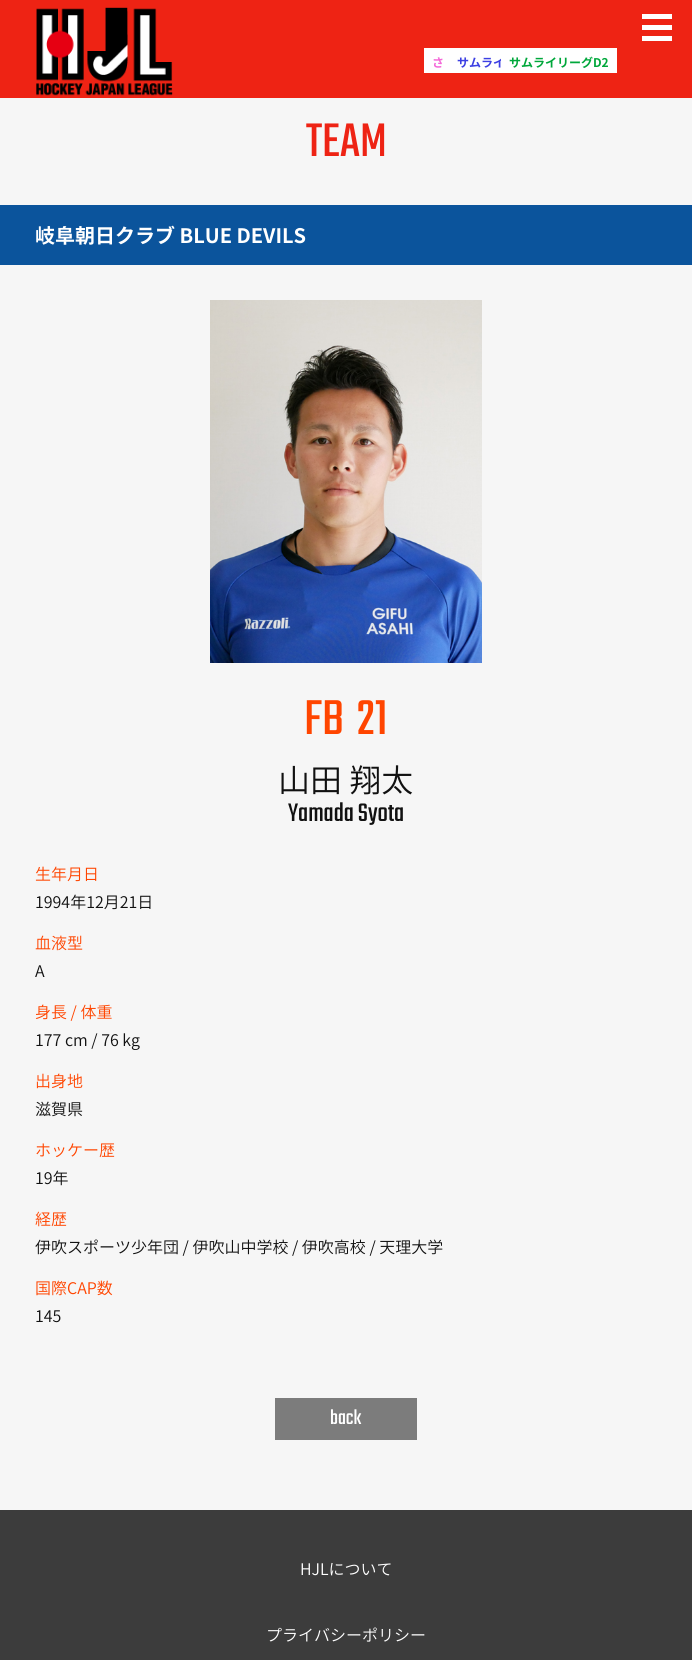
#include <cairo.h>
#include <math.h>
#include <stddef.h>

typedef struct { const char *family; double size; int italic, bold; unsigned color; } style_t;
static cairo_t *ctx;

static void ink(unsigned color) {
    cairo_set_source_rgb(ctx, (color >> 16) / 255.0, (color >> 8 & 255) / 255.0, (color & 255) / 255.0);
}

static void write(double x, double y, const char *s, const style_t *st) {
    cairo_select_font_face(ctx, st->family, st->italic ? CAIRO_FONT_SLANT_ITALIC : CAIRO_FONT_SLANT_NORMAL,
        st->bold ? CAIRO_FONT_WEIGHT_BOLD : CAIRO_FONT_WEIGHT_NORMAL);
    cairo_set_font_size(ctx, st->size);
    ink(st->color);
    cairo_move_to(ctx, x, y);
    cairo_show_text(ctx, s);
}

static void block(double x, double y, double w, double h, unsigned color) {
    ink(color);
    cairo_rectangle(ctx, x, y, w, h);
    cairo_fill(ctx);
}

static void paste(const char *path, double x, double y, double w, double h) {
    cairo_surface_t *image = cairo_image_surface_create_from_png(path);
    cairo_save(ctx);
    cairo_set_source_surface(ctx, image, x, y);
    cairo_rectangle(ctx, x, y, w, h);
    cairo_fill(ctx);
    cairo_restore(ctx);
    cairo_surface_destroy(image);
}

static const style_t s1 = {"Noto Sans JP", 12, 0, 1, 0xf468d8};
static const style_t s2 = {"Noto Sans JP", 12, 0, 1, 0x3c3fe3};
static const style_t s3 = {"Noto Sans JP", 12, 0, 1, 0x00a73b};
static const style_t s4 = {"Teko Light", 52, 0, 0, 0xee2314};
static const style_t s5 = {"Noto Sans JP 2", 20, 0, 1, 0xffffff};
static const style_t s6 = {"Teko Light", 54, 0, 0, 0xff4500};
static const style_t s7 = {"Noto Sans JP Light", 32, 0, 0, 0x111111};
static const style_t s8 = {"Teko Light", 28, 0, 0, 0x111111};
static const style_t s9 = {"Noto Sans JP Light", 16, 0, 0, 0xff4500};
static const style_t s10 = {"Noto Sans JP Light", 16, 0, 0, 0x111111};
static const style_t s11 = {"Teko Light", 22, 0, 0, 0xffffff};
static const style_t s12 = {"Noto Sans JP Light", 16, 0, 0, 0xffffff};

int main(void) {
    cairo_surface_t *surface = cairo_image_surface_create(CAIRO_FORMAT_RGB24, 692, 1660);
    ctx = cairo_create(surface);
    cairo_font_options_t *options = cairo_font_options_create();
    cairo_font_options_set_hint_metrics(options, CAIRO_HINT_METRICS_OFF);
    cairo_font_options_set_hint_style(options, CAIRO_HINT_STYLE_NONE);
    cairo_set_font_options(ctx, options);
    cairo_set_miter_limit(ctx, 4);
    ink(0xee2314);
    cairo_paint(ctx);
    paste("pic1.png", 36, 7, 137, 89);
    block(642, 14, 30, 5, 0xffffff);
    block(642, 25, 30, 5, 0xffffff);
    block(642, 36, 30, 5, 0xffffff);
    block(424, 48, 77, 25, 0xffffff);
    write(432, 67, "さ", &s1);
    write(457, 67, "サムライ", &s2);
    block(501, 48, 116, 25, 0xffffff);
    write(509, 67, "サムライリーグD2", &s3);
    block(0, 98, 692, 1412, 0xf6f6f6);
    write(306, 156, "TEAM", &s4);
    block(0, 205, 692, 60, 0x0b549c);
    write(35, 243, "岐阜朝日クラブ BLUE DEVILS", &s5);
    paste("pic2.png", 210, 300, 272, 363);
    write(304, 734, "FB", &s6);
    write(357, 734, "21", &s6);
    write(278, 792, "山田 翔太", &s7);
    write(288, 821, "Yamada Syota", &s8);
    write(35, 880, "生年月日", &s9);
    write(35, 908, "1994年12月21日", &s10);
    write(35, 949, "血液型", &s9);
    write(35, 977, "A", &s10);
    write(35, 1018, "身長 / 体重", &s9);
    write(35, 1046, "177 cm / 76 kg", &s10);
    write(35, 1087, "出身地", &s9);
    write(35, 1115, "滋賀県", &s10);
    write(35, 1156, "ホッケー歴", &s9);
    write(35, 1184, "19年", &s10);
    write(35, 1225, "経歴", &s9);
    write(35, 1253, "伊吹スポーツ少年団 / 伊吹山中学校 / 伊吹高校 / 天理大学", &s10);
    write(35, 1294, "国際CAP数", &s9);
    write(35, 1322, "145", &s10);
    block(275, 1398, 142, 42, 0x7c7c7c);
    write(330, 1424, "back", &s11);
    block(0, 1510, 692, 150, 0x3c3c3c);
    write(300, 1575, "HJLについて", &s12);
    write(266, 1641, "プライバシーポリシー", &s12);
    cairo_surface_write_to_png(surface, "screenshot.png");
    cairo_font_options_destroy(options);
    cairo_destroy(ctx);
    cairo_surface_destroy(surface);
    return 0;
}
